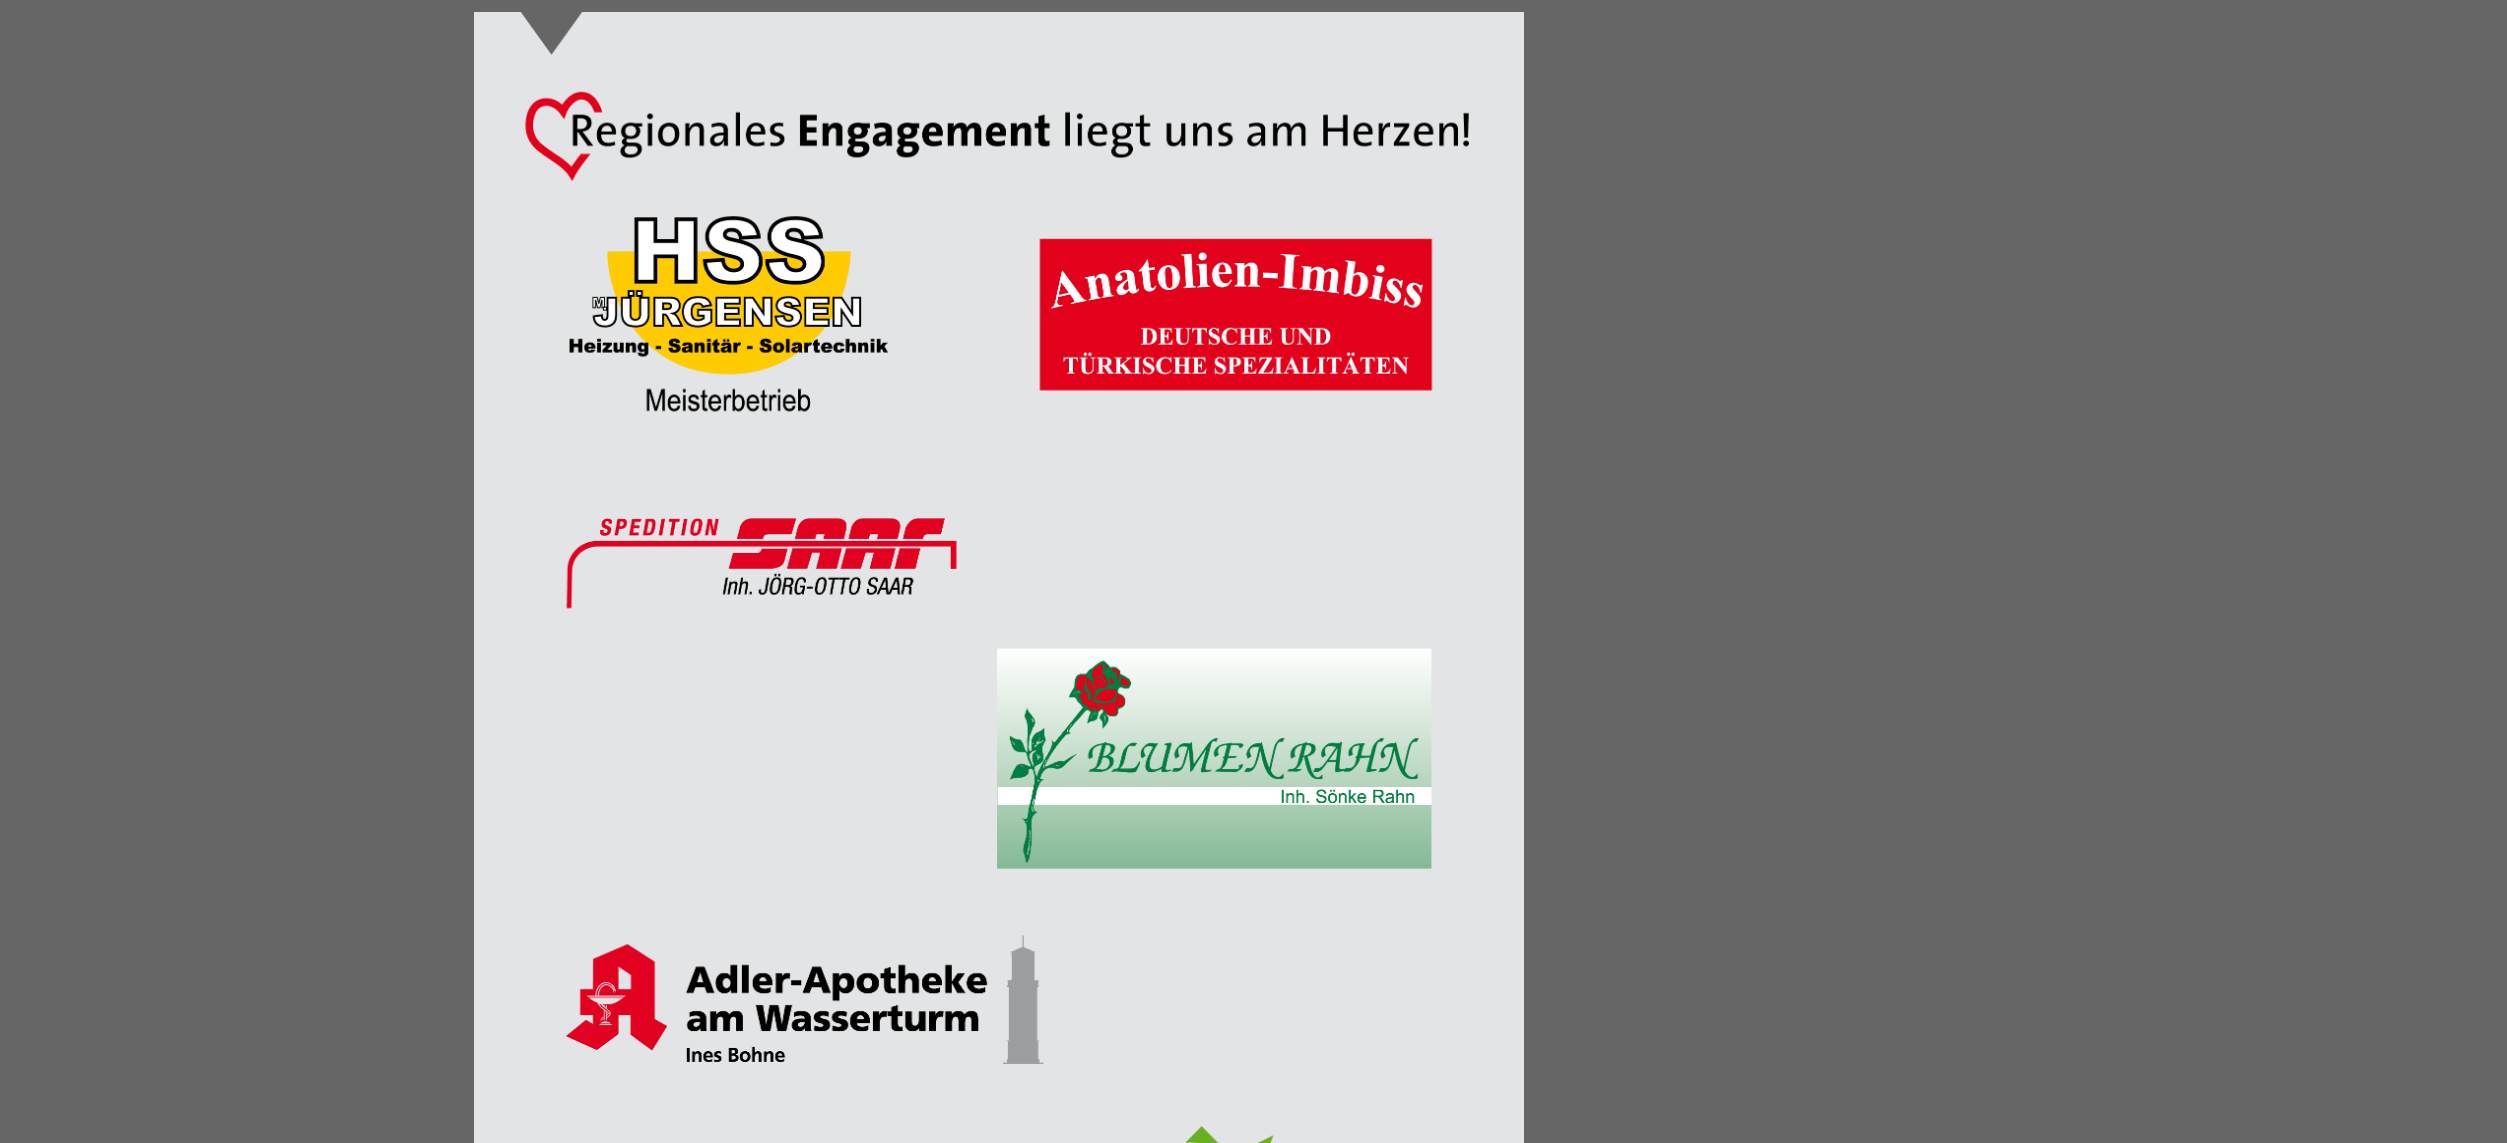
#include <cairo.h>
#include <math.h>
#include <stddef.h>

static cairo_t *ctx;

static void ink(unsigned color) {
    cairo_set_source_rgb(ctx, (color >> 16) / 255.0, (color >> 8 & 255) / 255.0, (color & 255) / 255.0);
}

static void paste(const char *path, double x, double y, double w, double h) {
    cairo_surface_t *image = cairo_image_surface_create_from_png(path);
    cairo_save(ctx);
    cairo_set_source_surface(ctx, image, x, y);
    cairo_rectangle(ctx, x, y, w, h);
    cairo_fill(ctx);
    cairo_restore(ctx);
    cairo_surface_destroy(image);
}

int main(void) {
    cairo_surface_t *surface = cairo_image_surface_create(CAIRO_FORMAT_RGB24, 2507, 1143);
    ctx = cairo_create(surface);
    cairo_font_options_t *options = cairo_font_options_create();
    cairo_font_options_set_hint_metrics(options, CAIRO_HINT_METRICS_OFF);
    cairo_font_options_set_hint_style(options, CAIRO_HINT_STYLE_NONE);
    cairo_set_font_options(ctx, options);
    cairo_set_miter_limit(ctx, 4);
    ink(0x666666);
    cairo_paint(ctx);
    paste("pic1.png", 474, 12, 1050, 1131);
    cairo_surface_write_to_png(surface, "screenshot.png");
    cairo_font_options_destroy(options);
    cairo_destroy(ctx);
    cairo_surface_destroy(surface);
    return 0;
}
